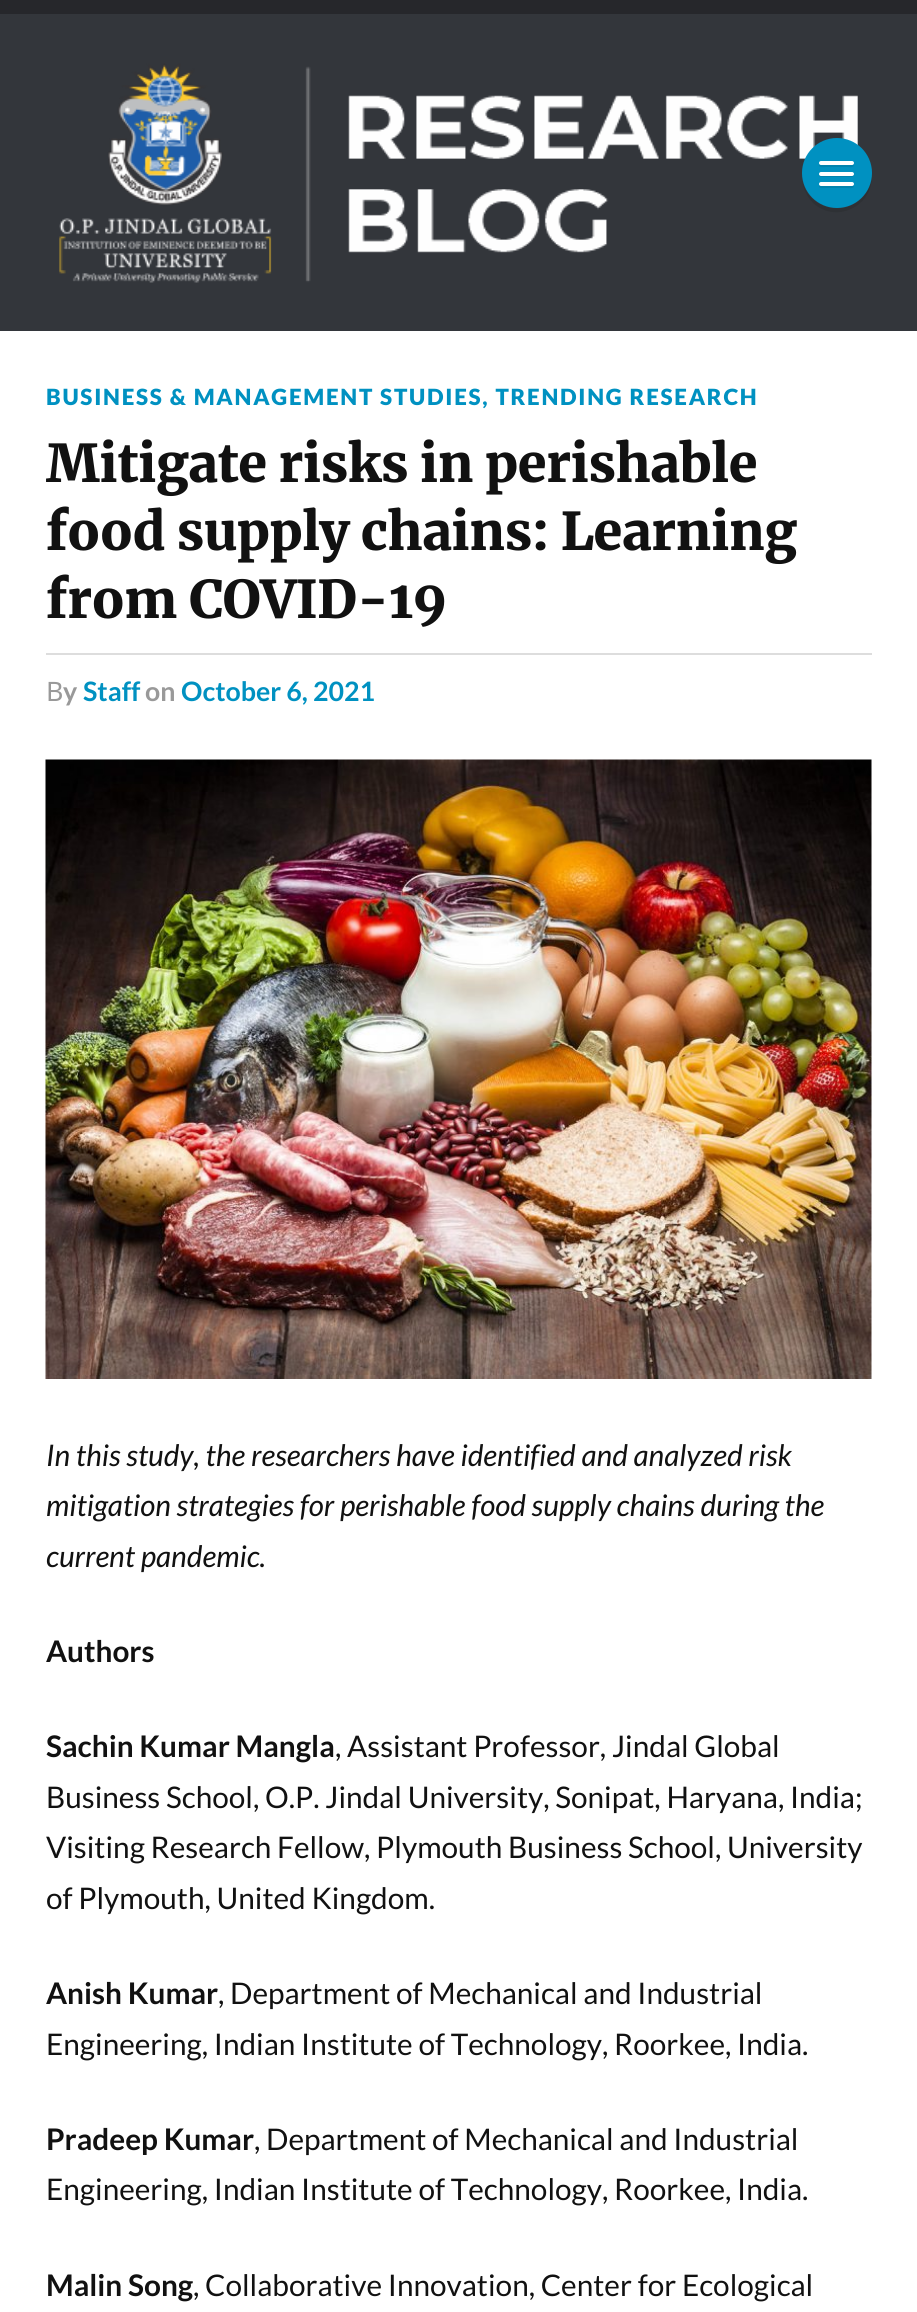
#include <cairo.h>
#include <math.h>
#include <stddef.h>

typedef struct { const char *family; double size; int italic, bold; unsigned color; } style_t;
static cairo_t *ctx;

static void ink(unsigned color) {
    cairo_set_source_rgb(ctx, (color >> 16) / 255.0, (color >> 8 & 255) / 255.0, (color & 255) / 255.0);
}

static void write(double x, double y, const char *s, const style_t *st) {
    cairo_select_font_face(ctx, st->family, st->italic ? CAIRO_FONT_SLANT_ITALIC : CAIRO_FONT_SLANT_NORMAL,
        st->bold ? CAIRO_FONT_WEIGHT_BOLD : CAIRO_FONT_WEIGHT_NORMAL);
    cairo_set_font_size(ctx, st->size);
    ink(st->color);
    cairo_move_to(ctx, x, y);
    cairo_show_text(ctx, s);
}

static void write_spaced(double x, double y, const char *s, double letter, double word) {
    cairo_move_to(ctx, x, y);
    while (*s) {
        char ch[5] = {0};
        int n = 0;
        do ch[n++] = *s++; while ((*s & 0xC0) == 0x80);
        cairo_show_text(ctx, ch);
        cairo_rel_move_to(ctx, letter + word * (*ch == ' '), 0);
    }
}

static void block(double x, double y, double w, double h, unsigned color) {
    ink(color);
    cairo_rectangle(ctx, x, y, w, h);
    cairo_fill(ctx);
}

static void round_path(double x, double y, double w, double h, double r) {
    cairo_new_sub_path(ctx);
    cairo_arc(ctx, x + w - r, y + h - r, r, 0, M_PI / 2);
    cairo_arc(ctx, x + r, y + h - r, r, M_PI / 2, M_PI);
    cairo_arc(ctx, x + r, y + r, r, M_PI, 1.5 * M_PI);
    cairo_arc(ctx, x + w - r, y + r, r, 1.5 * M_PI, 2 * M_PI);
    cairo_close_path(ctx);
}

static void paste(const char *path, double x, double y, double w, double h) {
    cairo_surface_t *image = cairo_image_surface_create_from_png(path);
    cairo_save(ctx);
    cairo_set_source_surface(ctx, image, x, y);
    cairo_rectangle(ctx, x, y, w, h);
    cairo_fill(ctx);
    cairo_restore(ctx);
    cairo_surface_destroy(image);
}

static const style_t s1 = {"Noto Sans", 26.75, 0, 0, 0x999999};
static const style_t s2 = {"Lato", 26.75, 0, 1, 0x999999};
static const style_t s3 = {"Lato", 26.75, 0, 1, 0x0091c1};
static const style_t s4 = {"Lato", 29.75, 1, 0, 0x111111};
static const style_t s5 = {"Lato", 29.75, 0, 1, 0x111111};
static const style_t s6 = {"Lato", 29.75, 0, 0, 0x111111};

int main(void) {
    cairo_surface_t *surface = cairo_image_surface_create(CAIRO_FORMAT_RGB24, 917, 2312);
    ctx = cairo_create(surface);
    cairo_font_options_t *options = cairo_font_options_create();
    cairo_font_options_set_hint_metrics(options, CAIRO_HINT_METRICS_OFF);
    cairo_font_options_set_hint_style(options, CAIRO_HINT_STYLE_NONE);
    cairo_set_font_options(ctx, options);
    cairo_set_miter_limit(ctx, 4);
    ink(0xffffff);
    cairo_paint(ctx);
    block(0, 14, 917, 317, 0x33363b);
    block(0, 0, 917, 14, 0x26272b);
    paste("pic1.png", 59, 63, 799, 220);
    ink(0x2e3135);
    cairo_new_path(ctx);
    cairo_move_to(ctx, 802, 180);
    cairo_curve_to(ctx, 803, 188, 807, 197, 813, 203);
    cairo_curve_to(ctx, 838, 226, 878, 203, 871, 170);
    cairo_curve_to(ctx, 872, 178, 870, 186, 866, 193);
    cairo_curve_to(ctx, 848, 219, 808, 210, 802, 180);
    cairo_close_path(ctx);
    cairo_fill(ctx);
    ink(0x0091c1);
    cairo_arc(ctx, 837, 173, 35, 0, 2 * M_PI);
    cairo_fill(ctx);
    ink(0x0083ae);
    cairo_new_path(ctx);
    cairo_move_to(ctx, 819.5, 164);
    cairo_line_to(ctx, 819, 165.5);
    cairo_curve_to(ctx, 819.5, 168, 825, 167, 826, 167);
    cairo_line_to(ctx, 847, 167);
    cairo_curve_to(ctx, 848, 167, 853.5, 168, 854, 165.5);
    cairo_line_to(ctx, 853.5, 164);
    cairo_line_to(ctx, 852.5, 164.5);
    cairo_line_to(ctx, 820.5, 164.5);
    cairo_close_path(ctx);
    cairo_fill(ctx);
    ink(0xffffff);
    round_path(819, 161, 35, 4, 2);
    cairo_fill(ctx);
    ink(0x0083ae);
    cairo_new_path(ctx);
    cairo_move_to(ctx, 819, 174);
    cairo_curve_to(ctx, 817, 178, 825.5, 177, 826, 177);
    cairo_line_to(ctx, 847, 177);
    cairo_curve_to(ctx, 847.5, 177, 856, 178, 854, 174);
    cairo_line_to(ctx, 852.5, 175);
    cairo_line_to(ctx, 820.5, 175);
    cairo_close_path(ctx);
    cairo_fill(ctx);
    ink(0xffffff);
    round_path(819, 172, 35, 4, 2);
    cairo_fill(ctx);
    ink(0x0083ae);
    cairo_new_path(ctx);
    cairo_move_to(ctx, 819.5, 185);
    cairo_line_to(ctx, 819, 186.5);
    cairo_curve_to(ctx, 819.5, 189, 825, 188, 826, 188);
    cairo_line_to(ctx, 847, 188);
    cairo_curve_to(ctx, 848, 188, 853.5, 189, 854, 186.5);
    cairo_line_to(ctx, 853.5, 185);
    cairo_line_to(ctx, 852.5, 185.5);
    cairo_line_to(ctx, 820.5, 185.5);
    cairo_close_path(ctx);
    cairo_fill(ctx);
    ink(0xffffff);
    round_path(819, 182, 35, 4, 2);
    cairo_fill(ctx);
    cairo_select_font_face(ctx, "Lato Black", CAIRO_FONT_SLANT_NORMAL, CAIRO_FONT_WEIGHT_NORMAL);
    cairo_set_font_size(ctx, 22.3);
    ink(0x0091c1);
    write_spaced(46, 405, "BUSINESS & MANAGEMENT STUDIES, TRENDING RESEARCH", 1.75, 0);
    cairo_select_font_face(ctx, "Merriweather Black", CAIRO_FONT_SLANT_NORMAL, CAIRO_FONT_WEIGHT_NORMAL);
    cairo_set_font_size(ctx, 52);
    ink(0x111111);
    write_spaced(46, 482, "Mitigate risks in perishable", -0.5, 0);
    write_spaced(46, 550, "food supply chains: Learning", -0.5, 0);
    write_spaced(46, 618, "from COVID-19", -0.5, 0);
    block(46, 653, 826, 2, 0xdddddd);
    write(46, 701, "B", &s1);
    write(63, 701, "y", &s2);
    write(83, 701, "Staff", &s3);
    write(145, 701, "on", &s2);
    write(181, 701, "October 6, 2021", &s3);
    paste("pic2.png", 45, 759, 827, 620);
    write(46, 1466, "In this study, the researchers have identified and analyzed risk", &s4);
    write(46, 1516, "mitigation strategies for perishable food supply chains during the", &s4);
    write(46, 1567, "current pandemic.", &s4);
    write(46, 1662, "Authors", &s5);
    write(46, 1757, "Sachin Kumar Mangla", &s5);
    write(335, 1757, ", Assistant Professor, Jindal Global", &s6);
    write(46, 1808, "Business School, O.P. Jindal University, Sonipat, Haryana, India;", &s6);
    write(46, 1858, "Visiting Research Fellow, Plymouth Business School, University", &s6);
    write(46, 1909, "of Plymouth, United Kingdom.", &s6);
    write(46, 2004, "Anish Kumar", &s5);
    write(218, 2004, ", Department of Mechanical and Industrial", &s6);
    write(46, 2055, "Engineering, Indian Institute of Technology, Roorkee, India.", &s6);
    write(46, 2150, "Pradeep Kumar", &s5);
    write(254, 2150, ", Department of Mechanical and Industrial", &s6);
    write(46, 2200, "Engineering, Indian Institute of Technology, Roorkee, India.", &s6);
    write(46, 2296, "Malin Song", &s5);
    write(193, 2296, ", Collaborative Innovation, Center for Ecological", &s6);
    cairo_surface_write_to_png(surface, "screenshot.png");
    cairo_font_options_destroy(options);
    cairo_destroy(ctx);
    cairo_surface_destroy(surface);
    return 0;
}
